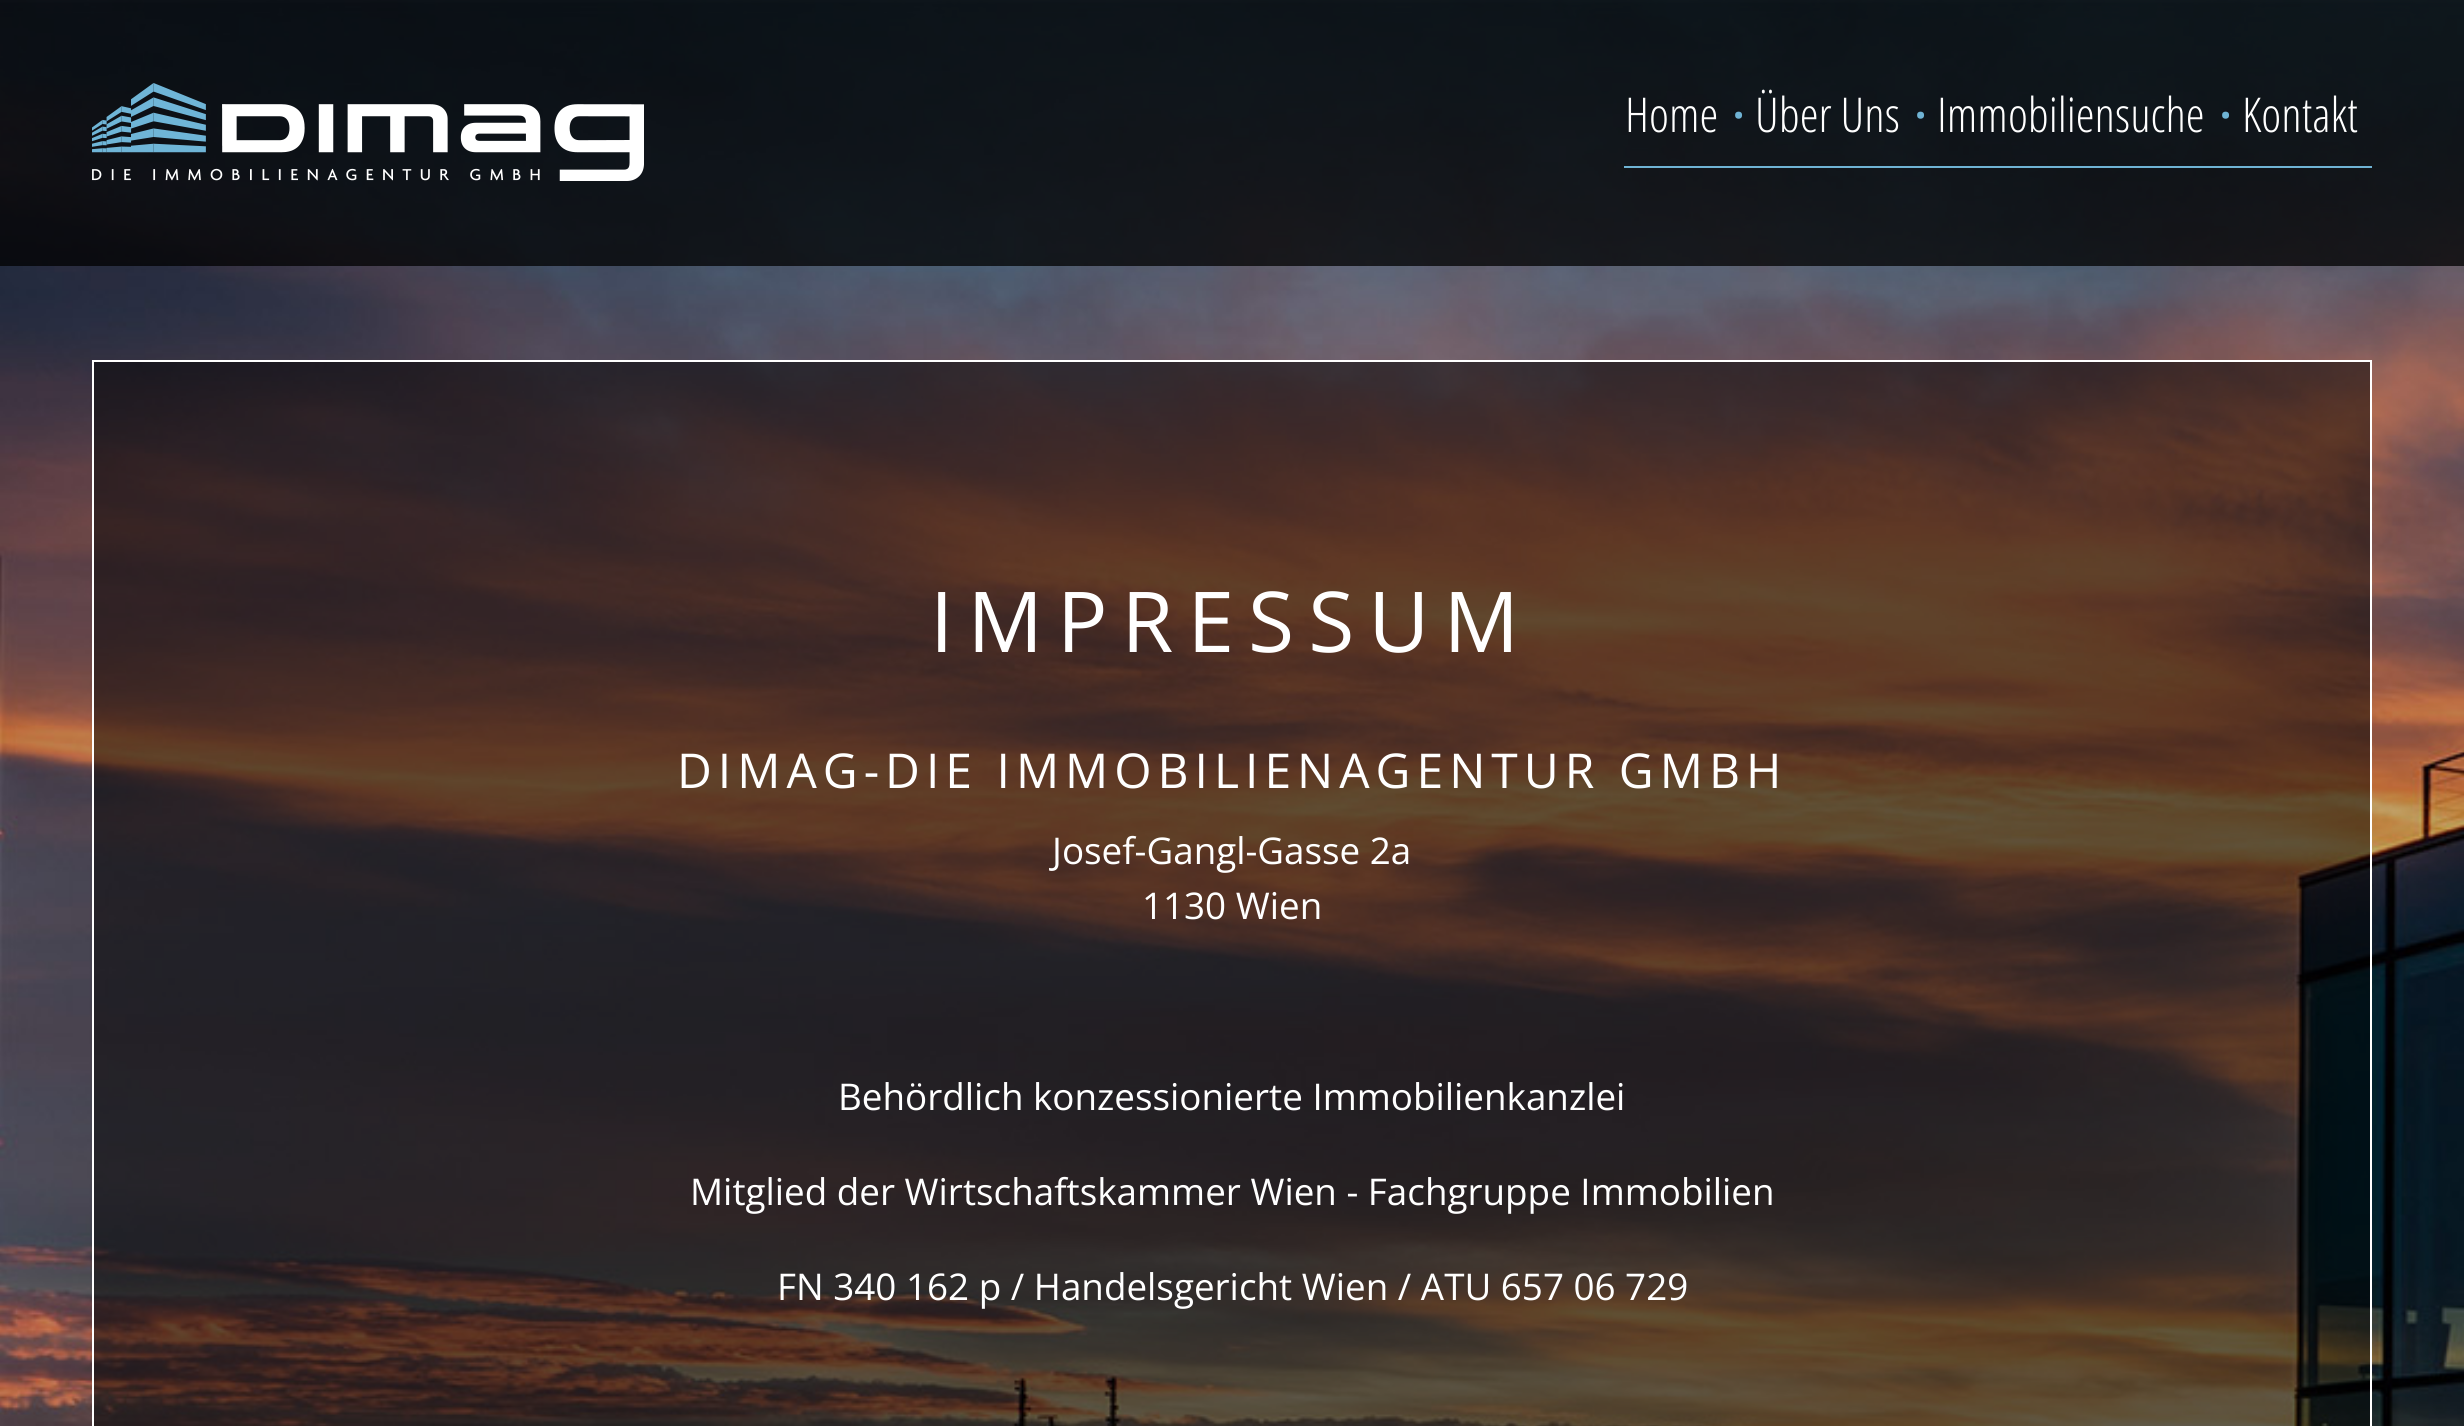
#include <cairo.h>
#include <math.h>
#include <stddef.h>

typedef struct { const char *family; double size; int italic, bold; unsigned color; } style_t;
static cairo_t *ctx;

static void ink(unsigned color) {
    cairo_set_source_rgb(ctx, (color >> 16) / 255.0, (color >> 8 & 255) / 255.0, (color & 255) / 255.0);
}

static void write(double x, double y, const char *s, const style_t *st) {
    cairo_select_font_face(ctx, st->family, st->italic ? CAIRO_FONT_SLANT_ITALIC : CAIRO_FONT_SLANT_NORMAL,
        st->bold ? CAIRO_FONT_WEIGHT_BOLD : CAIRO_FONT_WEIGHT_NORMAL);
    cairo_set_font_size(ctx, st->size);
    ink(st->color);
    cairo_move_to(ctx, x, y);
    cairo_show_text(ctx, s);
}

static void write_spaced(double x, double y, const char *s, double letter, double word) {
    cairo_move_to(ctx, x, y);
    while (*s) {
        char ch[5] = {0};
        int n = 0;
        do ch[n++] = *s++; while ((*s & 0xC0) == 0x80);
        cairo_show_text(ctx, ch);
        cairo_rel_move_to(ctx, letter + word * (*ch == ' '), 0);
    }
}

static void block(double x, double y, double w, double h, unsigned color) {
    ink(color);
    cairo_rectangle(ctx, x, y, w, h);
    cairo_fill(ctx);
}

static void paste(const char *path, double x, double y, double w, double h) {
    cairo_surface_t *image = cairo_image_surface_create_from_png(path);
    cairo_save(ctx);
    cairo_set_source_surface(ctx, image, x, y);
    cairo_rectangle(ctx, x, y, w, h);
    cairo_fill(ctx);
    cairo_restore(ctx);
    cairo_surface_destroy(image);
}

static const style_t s1 = {"Open Sans Condensed Light", 48, 0, 0, 0xffffff};
static const style_t s2 = {"Open Sans SemiBold", 48, 0, 0, 0x6fb3d4};
static const style_t s3 = {"Open Sans", 36.8, 0, 0, 0xffffff};

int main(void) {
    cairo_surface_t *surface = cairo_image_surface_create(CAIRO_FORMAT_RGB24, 2464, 1426);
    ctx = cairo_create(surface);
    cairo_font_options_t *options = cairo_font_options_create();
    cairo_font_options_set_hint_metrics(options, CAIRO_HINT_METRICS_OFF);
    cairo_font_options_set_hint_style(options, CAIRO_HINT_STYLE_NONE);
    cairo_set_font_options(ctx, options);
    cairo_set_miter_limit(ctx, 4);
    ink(0xffffff);
    cairo_paint(ctx);
    paste("pic2.png", 0, 0, 2464, 1426);
    cairo_set_source_rgba(ctx, 0, 0, 0, 0.75);
    cairo_rectangle(ctx, 0, 0, 2464, 266);
    cairo_fill(ctx);
    paste("pic1.png", 92, 83, 552, 98);
    block(1624, 166, 748, 2, 0x6fb3d4);
    write(1625, 132, "Home", &s1);
    write(1732, 132, "·", &s2);
    write(1755, 132, "Über Uns", &s1);
    write(1914, 132, "·", &s2);
    write(1937, 132, "Immobiliensuche", &s1);
    write(2219, 132, "·", &s2);
    write(2242, 132, "Kontakt", &s1);
    cairo_set_source_rgba(ctx, 0, 0, 0, 0.5);
    cairo_rectangle(ctx, 93, 361, 2278, 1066);
    cairo_fill_preserve(ctx);
    ink(0xffffff);
    cairo_stroke(ctx);
    cairo_select_font_face(ctx, "Open Sans", CAIRO_FONT_SLANT_NORMAL, CAIRO_FONT_WEIGHT_NORMAL);
    cairo_set_font_size(ctx, 84);
    write_spaced(930, 652, "IMPRESSUM", 14, 0);
    cairo_set_font_size(ctx, 48);
    write_spaced(677, 788, "DIMAG-DIE IMMOBILIENAGENTUR GMBH", 6, 0);
    write(1052, 864, "Josef-Gangl-Gasse 2a", &s3);
    write(1142, 919, "1130 Wien", &s3);
    write(838, 1110, "Behördlich konzessionierte Immobilienkanzlei", &s3);
    write(690, 1205, "Mitglied der Wirtschaftskammer Wien - Fachgruppe Immobilien", &s3);
    write(777, 1300, "FN 340 162 p / Handelsgericht Wien / ATU 657 06 729", &s3);
    cairo_surface_write_to_png(surface, "screenshot.png");
    cairo_font_options_destroy(options);
    cairo_destroy(ctx);
    cairo_surface_destroy(surface);
    return 0;
}
